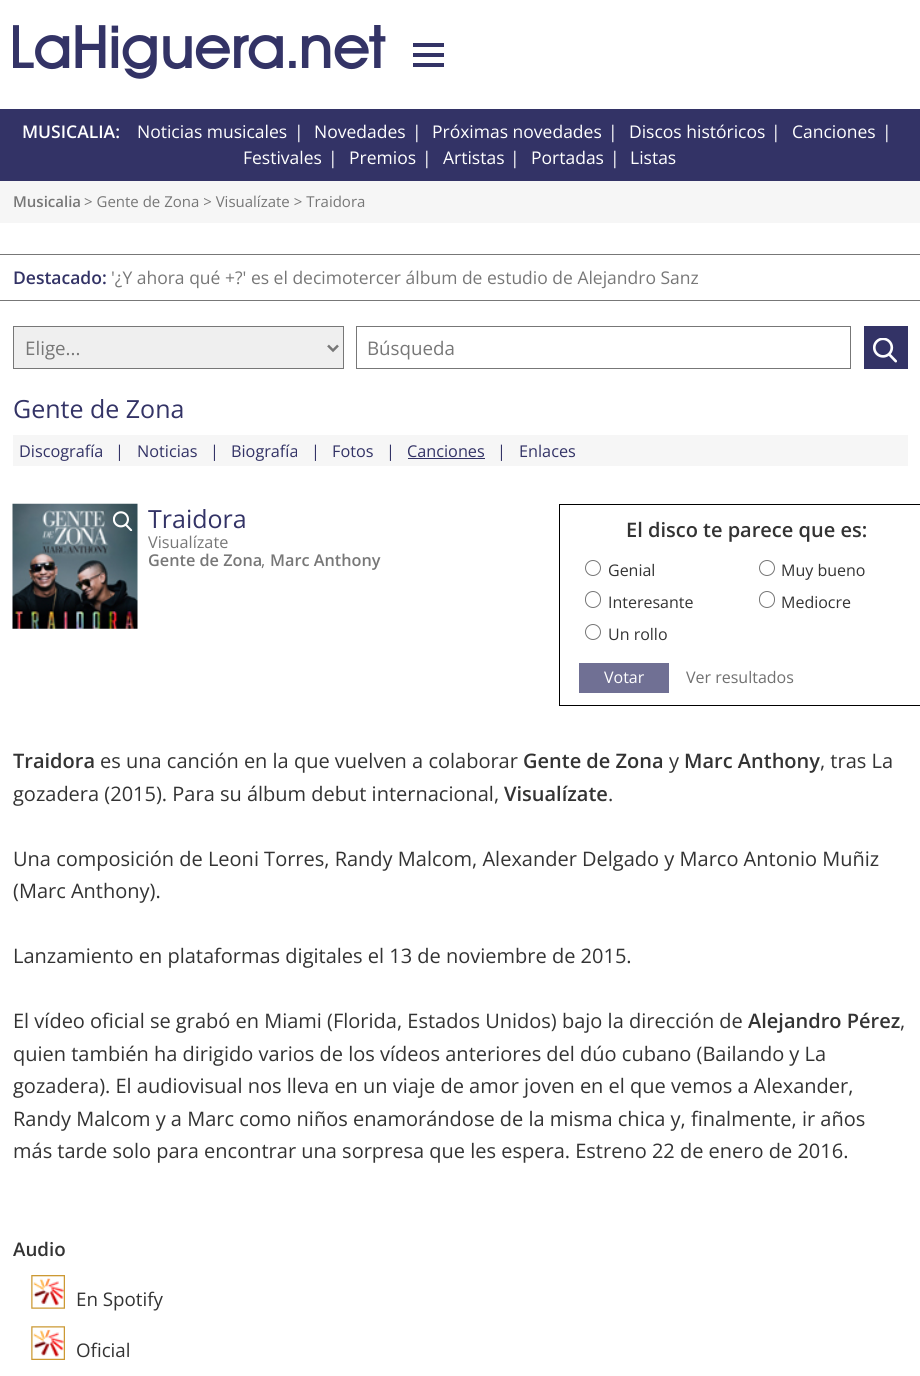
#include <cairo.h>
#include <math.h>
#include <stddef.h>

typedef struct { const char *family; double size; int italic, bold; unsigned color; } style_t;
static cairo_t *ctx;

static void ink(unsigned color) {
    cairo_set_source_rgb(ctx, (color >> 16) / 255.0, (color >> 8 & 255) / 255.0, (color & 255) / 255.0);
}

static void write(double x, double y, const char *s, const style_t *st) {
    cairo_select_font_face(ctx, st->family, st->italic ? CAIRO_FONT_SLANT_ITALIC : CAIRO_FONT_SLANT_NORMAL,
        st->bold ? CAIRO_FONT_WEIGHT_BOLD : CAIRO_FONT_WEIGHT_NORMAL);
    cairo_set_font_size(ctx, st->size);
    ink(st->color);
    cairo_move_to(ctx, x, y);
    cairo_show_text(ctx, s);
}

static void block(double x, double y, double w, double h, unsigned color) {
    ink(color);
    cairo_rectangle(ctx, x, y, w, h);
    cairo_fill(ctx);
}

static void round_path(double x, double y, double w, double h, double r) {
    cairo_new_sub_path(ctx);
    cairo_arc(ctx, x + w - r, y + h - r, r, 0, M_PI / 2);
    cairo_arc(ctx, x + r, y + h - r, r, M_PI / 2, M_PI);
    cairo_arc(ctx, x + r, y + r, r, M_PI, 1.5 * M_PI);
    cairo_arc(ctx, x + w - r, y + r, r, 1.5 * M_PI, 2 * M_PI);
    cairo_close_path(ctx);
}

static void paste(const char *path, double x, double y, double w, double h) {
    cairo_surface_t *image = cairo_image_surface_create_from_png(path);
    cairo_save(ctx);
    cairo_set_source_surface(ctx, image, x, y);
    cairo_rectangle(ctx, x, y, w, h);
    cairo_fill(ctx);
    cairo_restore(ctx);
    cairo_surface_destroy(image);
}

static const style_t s1 = {"Open Sans SemiBold", 17.5, 0, 0, 0xffffff};
static const style_t s2 = {"Open Sans", 17.5, 0, 0, 0xffffff};
static const style_t s3 = {"Open Sans SemiBold", 15, 0, 0, 0x777777};
static const style_t s4 = {"Open Sans", 15, 0, 0, 0x777777};
static const style_t s5 = {"Open Sans SemiBold", 17.5, 0, 0, 0x333366};
static const style_t s6 = {"Open Sans", 17.5, 0, 0, 0x777777};
static const style_t s7 = {"Open Sans", 18.75, 0, 0, 0x777777};
static const style_t s8 = {"Open Sans", 25, 0, 0, 0x333366};
static const style_t s9 = {"Open Sans", 16.25, 0, 0, 0x333366};
static const style_t s10 = {"Open Sans", 16.25, 0, 0, 0x777777};
static const style_t s11 = {"Open Sans SemiBold", 16.25, 0, 0, 0x777777};
static const style_t s12 = {"Open Sans SemiBold", 20, 0, 0, 0x333333};
static const style_t s13 = {"Open Sans", 16, 0, 0, 0x333333};
static const style_t s14 = {"Open Sans", 16, 0, 0, 0xffffff};
static const style_t s15 = {"Open Sans", 16, 0, 0, 0x707070};
static const style_t s16 = {"Open Sans", 20, 0, 0, 0x333333};
static const style_t s17 = {"Open Sans SemiBold", 18.75, 0, 0, 0x333333};
static const style_t s18 = {"Open Sans", 18.75, 0, 0, 0x333333};

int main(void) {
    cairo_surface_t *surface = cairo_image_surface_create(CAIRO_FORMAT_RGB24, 920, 1376);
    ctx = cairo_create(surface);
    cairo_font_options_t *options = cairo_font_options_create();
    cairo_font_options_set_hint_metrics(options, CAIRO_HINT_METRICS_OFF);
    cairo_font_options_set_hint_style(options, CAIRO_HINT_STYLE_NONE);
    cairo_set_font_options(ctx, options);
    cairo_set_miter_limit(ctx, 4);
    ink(0xffffff);
    cairo_paint(ctx);
    paste("pic1.png", 13, 25, 373, 54);
    block(413, 43, 31, 4, 0x333366);
    block(413, 63, 31, 4, 0x333366);
    block(413, 53, 31, 4, 0x333366);
    block(0, 109, 920, 72, 0x333366);
    write(22, 138, "MUSICALIA:", &s1);
    write(137, 138, "Noticias musicales", &s2);
    write(294, 138, "|", &s2);
    write(314, 138, "Novedades", &s2);
    write(412, 138, "|", &s2);
    write(432, 138, "Próximas novedades", &s2);
    write(608, 138, "|", &s2);
    write(629, 138, "Discos históricos", &s2);
    write(771, 138, "|", &s2);
    write(792, 138, "Canciones", &s2);
    write(882, 138, "|", &s2);
    write(243, 164, "Festivales", &s2);
    write(328, 164, "|", &s2);
    write(349, 164, "Premios", &s2);
    write(422, 164, "|", &s2);
    write(443, 164, "Artistas", &s2);
    write(510, 164, "|", &s2);
    write(531, 164, "Portadas", &s2);
    write(610, 164, "|", &s2);
    write(630, 164, "Listas", &s2);
    block(0, 181, 920, 42, 0xf6f6f6);
    write(13, 207, "Musicalia", &s3);
    write(84, 207, "> Gente de Zona > Visualízate > Traidora", &s4);
    block(0, 254, 920, 1, 0x777777);
    block(0, 300, 920, 1, 0x777777);
    write(13, 284, "Destacado:", &s5);
    write(111, 284, "'¿Y ahora qué +?' es el decimotercer álbum de estudio de Alejandro Sanz", &s6);
    ink(0xefefef);
    cairo_rectangle(ctx, 13.5, 326.5, 330, 42);
    cairo_fill_preserve(ctx);
    ink(0x777777);
    cairo_set_line_width(ctx, 1);
    cairo_stroke(ctx);
    cairo_new_path(ctx);
    cairo_move_to(ctx, 328, 345.5);
    cairo_line_to(ctx, 333, 350.5);
    cairo_line_to(ctx, 338, 345.5);
    cairo_set_line_width(ctx, 2.5);
    cairo_stroke(ctx);
    write(25, 355, "Elige...", &s7);
    cairo_rectangle(ctx, 356.5, 326.5, 494, 42);
    cairo_set_line_width(ctx, 1);
    cairo_stroke(ctx);
    write(367, 355, "Búsqueda", &s7);
    block(864, 326, 44, 43, 0x333366);
    paste("pic2.png", 873, 338, 24, 25);
    write(13, 418, "Gente de Zona", &s8);
    block(13, 435, 895, 31, 0xf6f6f6);
    write(19, 457, "Discografía", &s9);
    write(115, 457, "|", &s9);
    write(137, 457, "Noticias", &s9);
    write(210, 457, "|", &s9);
    write(231, 457, "Biografía", &s9);
    write(311, 457, "|", &s9);
    write(332, 457, "Fotos", &s9);
    write(386, 457, "|", &s9);
    write(407, 457, "Canciones", &s9);
    block(408, 458, 77, 1, 0x333366);
    write(497, 457, "|", &s9);
    write(519, 457, "Enlaces", &s9);
    paste("pic3.png", 12, 503, 126, 126);
    paste("pic4.png", 113, 511, 20, 20);
    write(148, 528, "Traidora", &s8);
    write(148, 548, "Visualízate", &s10);
    write(148, 566, "Gente de Zona", &s11);
    write(261, 566, ",", &s10);
    write(270, 566, "Marc Anthony", &s11);
    cairo_rectangle(ctx, 559.5, 504.5, 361, 201);
    ink(0x000000);
    cairo_stroke(ctx);
    write(626, 537, "El disco te parece que es:", &s12);
    cairo_new_path(ctx);
    cairo_arc(ctx, 593, 568, 7.5, 0, 2 * M_PI);
    ink(0x767676);
    cairo_stroke(ctx);
    write(608, 576, "Genial", &s13);
    cairo_new_path(ctx);
    cairo_arc(ctx, 767, 568, 7.5, 0, 2 * M_PI);
    ink(0x767676);
    cairo_stroke(ctx);
    write(781, 576, "Muy bueno", &s13);
    round_path(585.5, 591.5, 15, 16, 7.5);
    ink(0x767676);
    cairo_stroke(ctx);
    write(608, 608, "Interesante", &s13);
    round_path(759.5, 591.5, 15, 16, 7.5);
    ink(0x767676);
    cairo_stroke(ctx);
    write(781, 608, "Mediocre", &s13);
    cairo_new_path(ctx);
    cairo_arc(ctx, 593, 632, 7.5, 0, 2 * M_PI);
    ink(0x767676);
    cairo_stroke(ctx);
    write(608, 640, "Un rollo", &s13);
    block(579, 663, 90, 30, 0x707094);
    write(604, 683, "Votar", &s14);
    write(686, 683, "Ver resultados", &s15);
    write(13, 768, "Traidora", &s12);
    write(100, 768, "es una canción en la que vuelven a colaborar", &s16);
    write(523, 768, "Gente de Zona", &s12);
    write(669, 768, "y", &s16);
    write(684, 768, "Marc Anthony", &s12);
    write(820, 768, ", tras La", &s16);
    write(13, 801, "gozadera (2015). Para su álbum debut internacional,", &s16);
    write(504, 801, "Visualízate", &s12);
    write(608, 801, ".", &s16);
    write(13, 866, "Una composición de Leoni Torres, Randy Malcom, Alexander Delgado y Marco Antonio Muñiz", &s16);
    write(13, 898, "(Marc Anthony).", &s16);
    write(13, 963, "Lanzamiento en plataformas digitales el 13 de noviembre de 2015.", &s16);
    write(13, 1028, "El vídeo oficial se grabó en Miami (Florida, Estados Unidos) bajo la dirección de", &s16);
    write(748, 1028, "Alejandro Pérez", &s12);
    write(900, 1028, ",", &s16);
    write(13, 1061, "quien también ha dirigido varios de los vídeos anteriores del dúo cubano (Bailando y La", &s16);
    write(13, 1093, "gozadera). El audiovisual nos lleva en un viaje de amor joven en el que vemos a Alexander,", &s16);
    write(13, 1126, "Randy Malcom y a Marc como niños enamorándose de la misma chica y, finalmente, ir años", &s16);
    write(13, 1158, "más tarde solo para encontrar una sorpresa que les espera. Estreno 22 de enero de 2016.", &s16);
    write(13, 1256, "Audio", &s17);
    paste("pic5.png", 31, 1275, 34, 34);
    write(76, 1306, "En Spotify", &s18);
    paste("pic6.png", 31, 1326, 34, 34);
    write(76, 1357, "Oficial", &s18);
    cairo_surface_write_to_png(surface, "screenshot.png");
    cairo_font_options_destroy(options);
    cairo_destroy(ctx);
    cairo_surface_destroy(surface);
    return 0;
}
